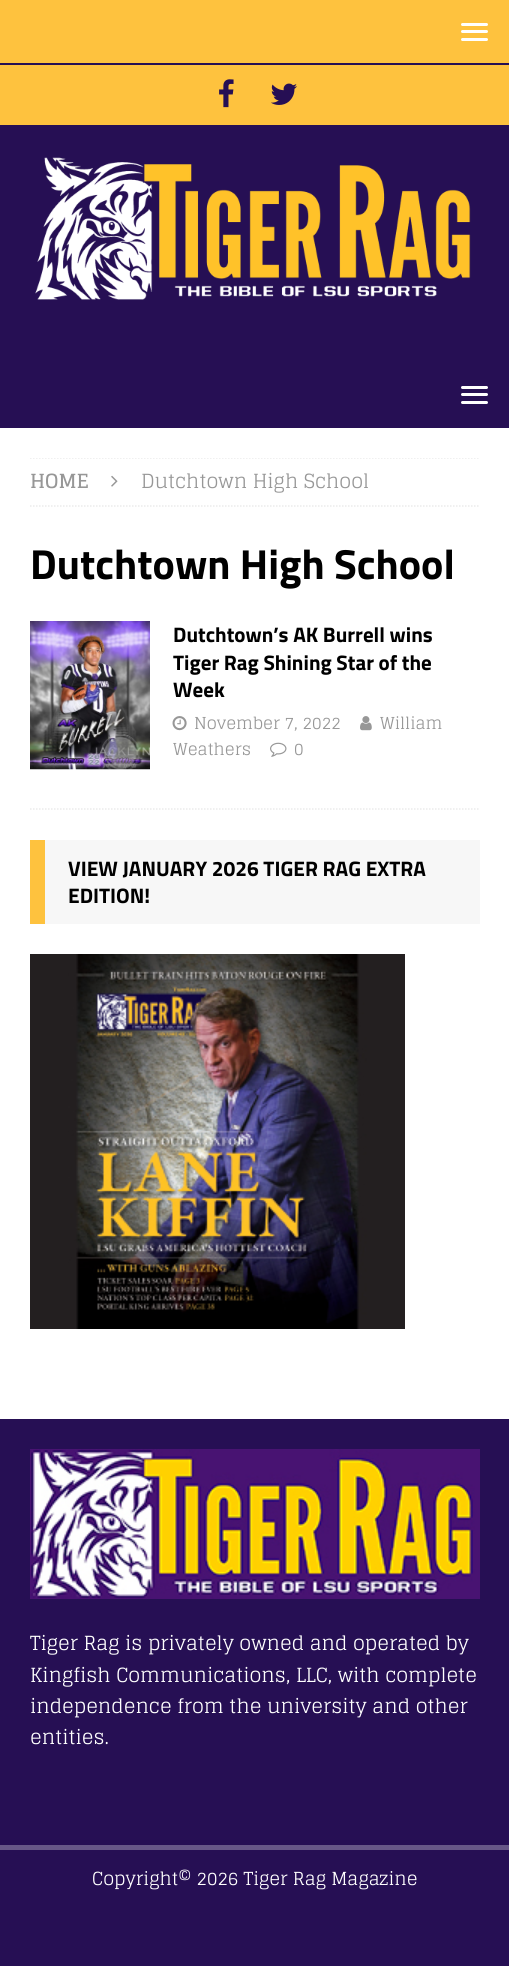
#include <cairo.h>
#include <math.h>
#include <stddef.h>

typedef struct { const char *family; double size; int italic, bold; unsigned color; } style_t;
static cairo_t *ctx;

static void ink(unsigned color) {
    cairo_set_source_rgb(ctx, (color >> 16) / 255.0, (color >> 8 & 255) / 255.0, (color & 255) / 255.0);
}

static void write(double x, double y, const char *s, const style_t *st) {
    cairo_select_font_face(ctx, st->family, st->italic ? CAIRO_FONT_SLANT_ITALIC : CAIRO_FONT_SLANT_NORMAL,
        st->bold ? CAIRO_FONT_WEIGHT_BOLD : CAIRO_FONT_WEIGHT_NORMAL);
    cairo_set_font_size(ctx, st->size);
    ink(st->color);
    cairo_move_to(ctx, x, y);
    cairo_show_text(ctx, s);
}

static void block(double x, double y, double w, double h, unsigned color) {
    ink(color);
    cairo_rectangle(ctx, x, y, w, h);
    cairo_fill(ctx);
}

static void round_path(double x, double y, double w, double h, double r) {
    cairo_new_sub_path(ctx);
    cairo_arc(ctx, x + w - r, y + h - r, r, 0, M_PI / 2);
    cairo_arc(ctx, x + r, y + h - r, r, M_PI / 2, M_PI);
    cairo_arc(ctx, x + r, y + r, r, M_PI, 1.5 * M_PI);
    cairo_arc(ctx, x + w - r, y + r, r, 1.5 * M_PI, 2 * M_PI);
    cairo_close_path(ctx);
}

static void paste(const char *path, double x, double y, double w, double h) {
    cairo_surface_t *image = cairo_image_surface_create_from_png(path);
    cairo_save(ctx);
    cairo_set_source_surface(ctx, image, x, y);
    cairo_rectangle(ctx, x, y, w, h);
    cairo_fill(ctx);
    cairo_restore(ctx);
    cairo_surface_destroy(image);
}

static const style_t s1 = {"Glegoo", 19.5, 0, 1, 0x979797};
static const style_t s2 = {"Glegoo", 19.5, 0, 0, 0x979797};
static const style_t s3 = {"Titillium Web", 42, 0, 1, 0x000000};
static const style_t s4 = {"Titillium Web", 21, 0, 1, 0x000000};
static const style_t s5 = {"Glegoo", 16.5, 0, 0, 0x979797};
static const style_t s6 = {"Glegoo", 19.5, 0, 0, 0xffffff};
static const style_t s7 = {"Glegoo", 18, 0, 0, 0xffffff};

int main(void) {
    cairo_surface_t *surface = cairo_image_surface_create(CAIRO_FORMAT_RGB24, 509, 1966);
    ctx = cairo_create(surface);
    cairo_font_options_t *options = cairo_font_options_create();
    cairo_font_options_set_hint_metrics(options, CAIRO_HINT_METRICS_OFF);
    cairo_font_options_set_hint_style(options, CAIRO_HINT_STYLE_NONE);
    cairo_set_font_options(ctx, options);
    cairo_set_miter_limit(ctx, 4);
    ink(0x260f54);
    cairo_paint(ctx);
    block(0, 0, 509, 63, 0xfec23e);
    ink(0xffffff);
    round_path(461, 23, 27, 3, 1.5);
    cairo_fill(ctx);
    round_path(461, 30, 27, 3, 1.5);
    cairo_fill(ctx);
    round_path(461, 38, 27, 3, 1.5);
    cairo_fill(ctx);
    block(0, 65, 509, 60, 0xfec23e);
    paste("pic1.png", 219, 79, 15, 29);
    paste("pic2.png", 271, 83, 26, 22);
    paste("pic3.png", 35, 157, 436, 143);
    ink(0xffffff);
    round_path(461, 386, 27, 3, 1.5);
    cairo_fill(ctx);
    round_path(461, 393, 27, 3, 1.5);
    cairo_fill(ctx);
    round_path(461, 401, 27, 3, 1.5);
    cairo_fill(ctx);
    block(0, 428, 509, 991, 0xffffff);
    cairo_save(ctx);
    cairo_rectangle(ctx, 30, 458, 450, 352);
    cairo_clip(ctx);
    cairo_new_path(ctx);
    cairo_move_to(ctx, 30, 458);
    cairo_line_to(ctx, 480, 458);
    ink(0xebebeb);
    cairo_set_line_width(ctx, 1.5);
    cairo_set_dash(ctx, (double[]){1.5, 1.5}, 2, 0);
    cairo_stroke(ctx);
    cairo_restore(ctx);
    cairo_new_path(ctx);
    cairo_move_to(ctx, 30, 506);
    cairo_line_to(ctx, 480, 506);
    ink(0xebebeb);
    cairo_set_line_width(ctx, 1.5);
    cairo_set_dash(ctx, (double[]){1.5, 1.5}, 2, 0);
    cairo_stroke(ctx);
    write(30, 488, "HOME", &s1);
    paste("pic4.png", 111, 475, 7, 12);
    write(141, 488, "Dutchtown High School", &s2);
    write(30, 579, "Dutchtown High School", &s3);
    cairo_new_path(ctx);
    cairo_move_to(ctx, 30, 809);
    cairo_line_to(ctx, 480, 809);
    ink(0xebebeb);
    cairo_stroke(ctx);
    paste("pic5.png", 30, 621, 120, 149);
    write(173, 642, "Dutchtown’s AK Burrell wins", &s4);
    write(173, 670, "Tiger Rag Shining Star of the", &s4);
    write(173, 697, "Week", &s4);
    paste("pic6.png", 360, 716, 12, 15);
    write(380, 729, "William", &s5);
    write(173, 755, "Weathers", &s5);
    paste("pic7.png", 172, 716, 15, 15);
    write(194, 729, "November 7, 2022", &s5);
    paste("pic8.png", 270, 742, 17, 15);
    write(294, 755, "0", &s5);
    block(45, 840, 435, 84, 0xf7f7f7);
    block(30, 840, 15, 84, 0xfec23e);
    write(68, 876, "VIEW JANUARY 2026 TIGER RAG EXTRA", &s4);
    write(68, 903, "EDITION!", &s4);
    paste("pic9.png", 30, 954, 375, 375);
    paste("pic10.png", 30, 1449, 450, 150);
    write(30, 1650, "Tiger Rag is privately owned and operated by", &s6);
    write(30, 1682, "Kingfish Communications, LLC, with complete", &s6);
    write(30, 1713, "independence from the university and other", &s6);
    write(30, 1744, "entities.", &s6);
    block(0, 1845, 509, 5, 0x675787);
    write(92, 1885, "Copyright© 2026 Tiger Rag Magazine", &s7);
    cairo_surface_write_to_png(surface, "screenshot.png");
    cairo_font_options_destroy(options);
    cairo_destroy(ctx);
    cairo_surface_destroy(surface);
    return 0;
}
